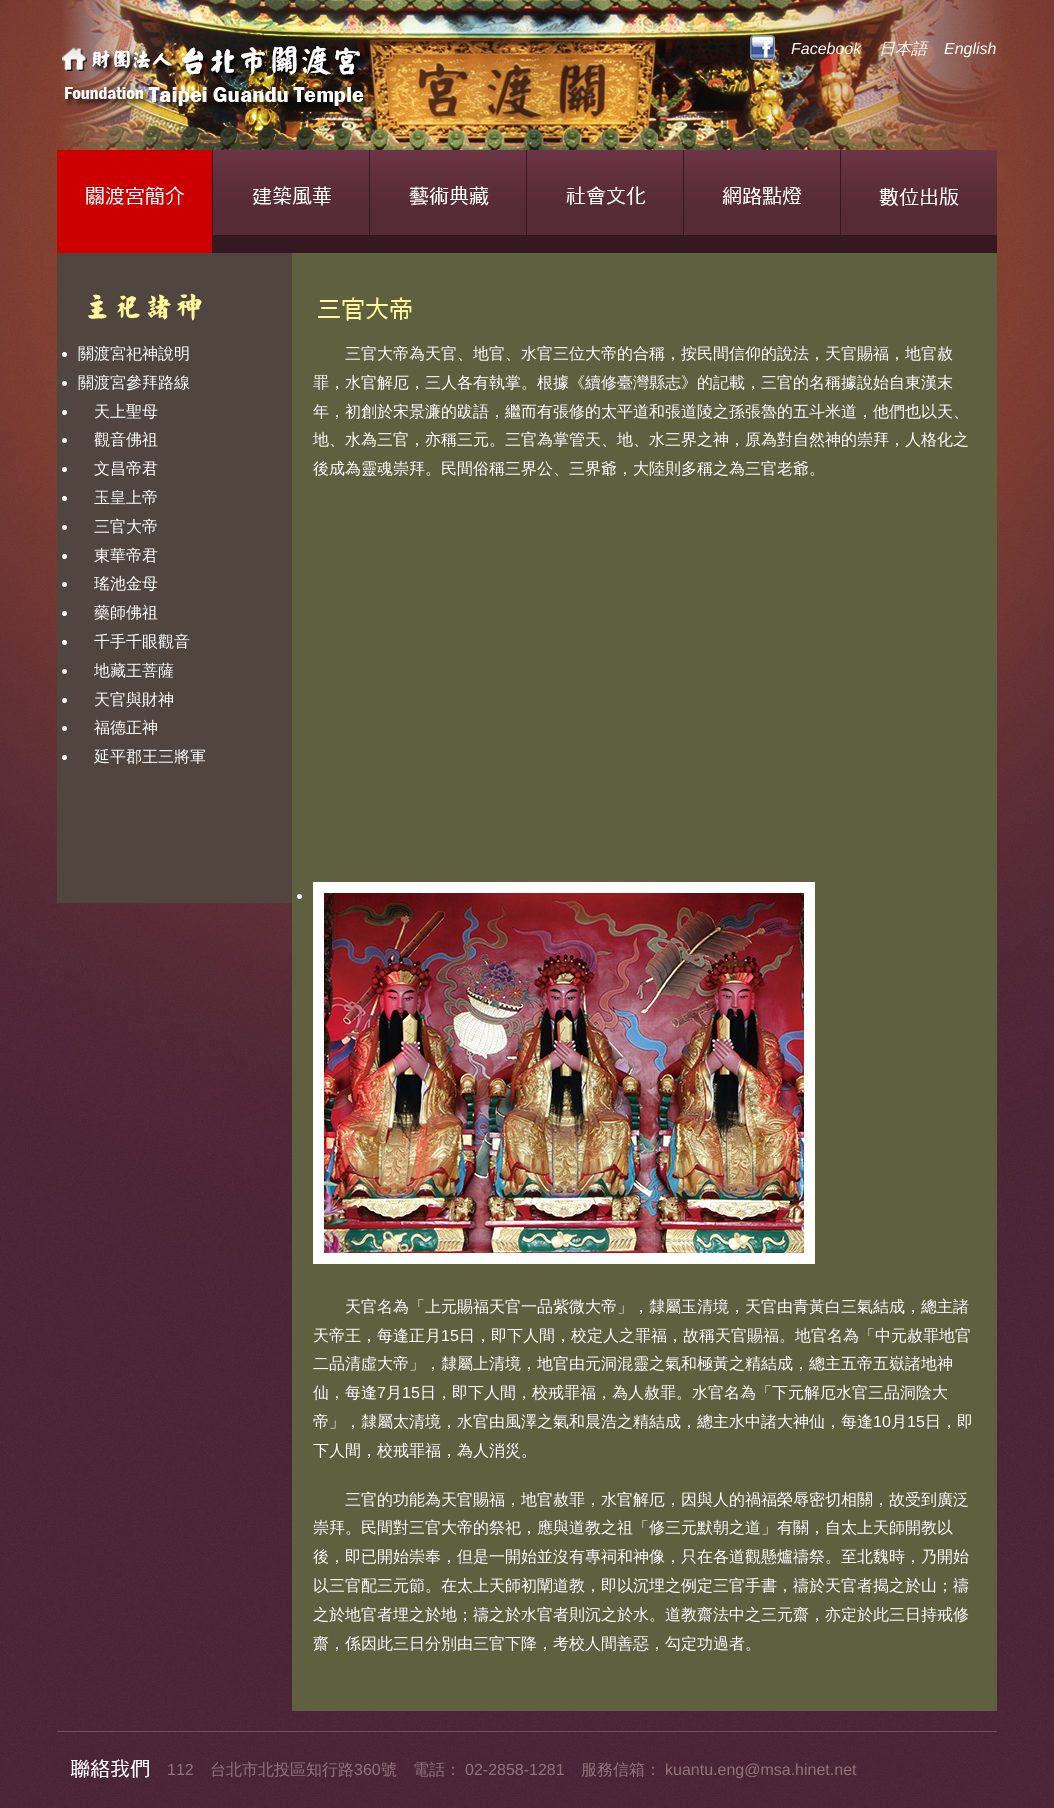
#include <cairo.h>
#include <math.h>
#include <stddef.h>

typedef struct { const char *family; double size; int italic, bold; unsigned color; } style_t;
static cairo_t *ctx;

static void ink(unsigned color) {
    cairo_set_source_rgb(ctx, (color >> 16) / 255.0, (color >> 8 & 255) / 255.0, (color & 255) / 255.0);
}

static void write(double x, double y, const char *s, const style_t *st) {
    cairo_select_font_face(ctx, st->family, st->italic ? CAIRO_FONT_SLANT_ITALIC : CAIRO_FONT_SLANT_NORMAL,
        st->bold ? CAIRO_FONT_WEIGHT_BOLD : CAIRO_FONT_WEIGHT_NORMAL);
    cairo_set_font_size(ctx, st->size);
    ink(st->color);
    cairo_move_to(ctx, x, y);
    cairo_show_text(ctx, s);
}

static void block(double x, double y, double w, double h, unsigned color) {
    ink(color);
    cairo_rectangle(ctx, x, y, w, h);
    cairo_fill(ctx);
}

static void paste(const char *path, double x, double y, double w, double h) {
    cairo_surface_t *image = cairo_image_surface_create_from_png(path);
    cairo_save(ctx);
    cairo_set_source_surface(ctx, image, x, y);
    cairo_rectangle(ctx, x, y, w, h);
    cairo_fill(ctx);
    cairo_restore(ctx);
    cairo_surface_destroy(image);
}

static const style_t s1 = {"Liberation Sans", 16, 1, 0, 0xffffff};
static const style_t s2 = {"WenQuanYi Zen Hei Medium", 16, 1, 0, 0xffffff};
static const style_t s3 = {"WenQuanYi Zen Hei Medium", 16, 0, 0, 0xffffff};
static const style_t s4 = {"Liberation Sans", 16, 0, 0, 0xffffff};
static const style_t s5 = {"Liberation Sans", 16, 0, 0, 0x93737c};
static const style_t s6 = {"WenQuanYi Zen Hei Medium", 16, 0, 0, 0x93737c};

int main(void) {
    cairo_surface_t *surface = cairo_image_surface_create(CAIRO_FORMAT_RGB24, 1054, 1808);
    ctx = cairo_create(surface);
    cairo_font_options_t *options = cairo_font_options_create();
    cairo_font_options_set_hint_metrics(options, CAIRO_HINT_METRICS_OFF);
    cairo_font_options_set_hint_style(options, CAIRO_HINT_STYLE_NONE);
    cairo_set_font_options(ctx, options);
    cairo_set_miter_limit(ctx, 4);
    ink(0xffffff);
    cairo_paint(ctx);
    paste("pic1.png", 0, 1370, 1054, 438);
    paste("pic2.png", 0, 0, 1054, 1370);
    paste("pic3.png", 62, 46, 307, 67);
    paste("pic4.png", 750, 35, 25, 25);
    write(791, 54, "Facebook", &s1);
    write(879, 54, "日本語", &s2);
    write(944, 54, "English", &s1);
    block(57, 150, 155, 103, 0xcc0000);
    paste("pic5.png", 86, 186, 99, 20);
    block(213, 235, 156, 18, 0x341921);
    paste("pic6.png", 213, 150, 156, 85);
    block(212, 150, 1, 103, 0x341921);
    paste("pic7.png", 252, 186, 80, 20);
    block(370, 235, 156, 18, 0x341921);
    paste("pic6.png", 370, 150, 156, 85);
    block(369, 150, 1, 103, 0x341921);
    paste("pic8.png", 409, 186, 80, 20);
    block(527, 235, 156, 18, 0x341921);
    paste("pic6.png", 527, 150, 156, 85);
    block(526, 150, 1, 103, 0x341921);
    paste("pic9.png", 566, 186, 80, 19);
    block(684, 235, 156, 18, 0x341921);
    paste("pic6.png", 684, 150, 156, 85);
    block(683, 150, 1, 103, 0x341921);
    paste("pic10.png", 722, 186, 80, 19);
    block(841, 235, 156, 18, 0x341921);
    paste("pic6.png", 841, 150, 156, 85);
    block(840, 150, 1, 103, 0x341921);
    paste("pic11.png", 879, 187, 80, 19);
    block(57, 253, 235, 650, 0x50453f);
    paste("pic12.png", 88, 293, 114, 28);
    ink(0xffffff);
    cairo_arc(ctx, 64.5, 354.5, 2.5, 0, 2 * M_PI);
    cairo_fill(ctx);
    write(78, 359, "關渡宮祀神說明", &s3);
    cairo_new_path(ctx);
    cairo_arc(ctx, 64.5, 383.5, 2.5, 0, 2 * M_PI);
    cairo_fill(ctx);
    write(78, 388, "關渡宮參拜路線", &s3);
    cairo_new_path(ctx);
    cairo_arc(ctx, 64.5, 412.5, 2.5, 0, 2 * M_PI);
    cairo_fill(ctx);
    write(94, 417, "天上聖母", &s3);
    cairo_new_path(ctx);
    cairo_arc(ctx, 64.5, 440.5, 2.5, 0, 2 * M_PI);
    cairo_fill(ctx);
    write(94, 445, "觀音佛祖", &s3);
    cairo_new_path(ctx);
    cairo_arc(ctx, 64.5, 469.5, 2.5, 0, 2 * M_PI);
    cairo_fill(ctx);
    write(94, 474, "文昌帝君", &s3);
    cairo_new_path(ctx);
    cairo_arc(ctx, 64.5, 498.5, 2.5, 0, 2 * M_PI);
    cairo_fill(ctx);
    write(94, 503, "玉皇上帝", &s3);
    cairo_new_path(ctx);
    cairo_arc(ctx, 64.5, 527.5, 2.5, 0, 2 * M_PI);
    cairo_fill(ctx);
    write(94, 532, "三官大帝", &s3);
    cairo_new_path(ctx);
    cairo_arc(ctx, 64.5, 556.5, 2.5, 0, 2 * M_PI);
    cairo_fill(ctx);
    write(94, 561, "東華帝君", &s3);
    cairo_new_path(ctx);
    cairo_arc(ctx, 64.5, 584.5, 2.5, 0, 2 * M_PI);
    cairo_fill(ctx);
    write(94, 589, "瑤池金母", &s3);
    cairo_new_path(ctx);
    cairo_arc(ctx, 64.5, 613.5, 2.5, 0, 2 * M_PI);
    cairo_fill(ctx);
    write(94, 618, "藥師佛祖", &s3);
    cairo_new_path(ctx);
    cairo_arc(ctx, 64.5, 642.5, 2.5, 0, 2 * M_PI);
    cairo_fill(ctx);
    write(94, 647, "千手千眼觀音", &s3);
    cairo_new_path(ctx);
    cairo_arc(ctx, 64.5, 671.5, 2.5, 0, 2 * M_PI);
    cairo_fill(ctx);
    write(94, 676, "地藏王菩薩", &s3);
    cairo_new_path(ctx);
    cairo_arc(ctx, 64.5, 700.5, 2.5, 0, 2 * M_PI);
    cairo_fill(ctx);
    write(94, 705, "天官與財神", &s3);
    cairo_new_path(ctx);
    cairo_arc(ctx, 64.5, 728.5, 2.5, 0, 2 * M_PI);
    cairo_fill(ctx);
    write(94, 733, "福德正神", &s3);
    cairo_new_path(ctx);
    cairo_arc(ctx, 64.5, 757.5, 2.5, 0, 2 * M_PI);
    cairo_fill(ctx);
    write(94, 762, "延平郡王三將軍", &s3);
    block(292, 253, 705, 1458, 0x5f6040);
    paste("pic13.png", 318, 297, 94, 24);
    write(345, 359, "三官大帝為天官、地官、水官三位大帝的合稱，按民間信仰的說法，天官賜福，地官赦", &s3);
    write(313, 388, "罪，水官解厄，三人各有執掌。根據《續修臺灣縣志》的記載，三官的名稱據說始自東漢末", &s3);
    write(313, 417, "年，初創於宋景濂的跋語，繼而有張修的太平道和張道陵之孫張魯的五斗米道，他們也以天、", &s3);
    write(313, 445, "地、水為三官，亦稱三元。三官為掌管天、地、水三界之神，原為對自然神的崇拜，人格化之", &s3);
    write(313, 474, "後成為靈魂崇拜。民間俗稱三界公、三界爺，大陸則多稱之為三官老爺。", &s3);
    cairo_new_path(ctx);
    cairo_arc(ctx, 299.5, 896.5, 2.5, 0, 2 * M_PI);
    cairo_fill(ctx);
    block(313, 882, 502, 382, 0xffffff);
    paste("pic14.png", 324, 893, 480, 360);
    write(345, 1312, "天官名為「上元賜福天官一品紫微大帝」，隸屬玉清境，天官由青黃白三氣結成，總主諸", &s3);
    write(313, 1341, "天帝王，每逢正月", &s3);
    write(441, 1341, "15", &s4);
    write(459, 1341, "日，即下人間，校定人之罪福，故稱天官賜福。地官名為「中元赦罪地官", &s3);
    write(313, 1369, "二品清虛大帝」，隸屬上清境，地官由元洞混靈之氣和極黃之精結成，總主五帝五嶽諸地神", &s3);
    write(313, 1398, "仙，每逢", &s3);
    write(377, 1398, "7", &s4);
    write(386, 1398, "月", &s3);
    write(402, 1398, "15", &s4);
    write(420, 1398, "日，即下人間，校戒罪福，為人赦罪。水官名為「下元解厄水官三品洞陰大", &s3);
    write(313, 1427, "帝」，隸屬太清境，水官由風澤之氣和晨浩之精結成，總主水中諸大神仙，每逢", &s3);
    write(873, 1427, "10", &s4);
    write(891, 1427, "月", &s3);
    write(907, 1427, "15", &s4);
    write(925, 1427, "日，即", &s3);
    write(313, 1456, "下人間，校戒罪福，為人消災。", &s3);
    write(345, 1505, "三官的功能為天官賜福，地官赦罪，水官解厄，因與人的禍福榮辱密切相關，故受到廣泛", &s3);
    write(313, 1533, "崇拜。民間對三官大帝的祭祀，應與道教之祖「修三元默朝之道」有關，自太上天師開教以", &s3);
    write(313, 1562, "後，即已開始崇奉，但是一開始並沒有專祠和神像，只在各道觀懸爐禱祭。至北魏時，乃開始", &s3);
    write(313, 1591, "以三官配三元節。在太上天師初闡道教，即以沉埋之例定三官手書，禱於天官者揭之於山；禱", &s3);
    write(313, 1620, "之於地官者埋之於地；禱之於水官者則沉之於水。道教齋法中之三元齋，亦定於此三日持戒修", &s3);
    write(313, 1649, "齋，係因此三日分別由三官下降，考校人間善惡，勾定功過者。", &s3);
    cairo_set_source_rgba(ctx, 1, 1, 1, 0.2);
    cairo_rectangle(ctx, 57, 1731, 940, 1);
    cairo_fill(ctx);
    paste("pic15.png", 70, 1759, 79, 19);
    write(167, 1775, "112", &s5);
    write(210, 1775, "台北市北投區知行路", &s6);
    write(354, 1775, "360", &s5);
    write(381, 1775, "號　電話：", &s6);
    write(465, 1775, "02-2858-1281", &s5);
    write(581, 1775, "服務信箱：", &s6);
    write(665, 1775, "kuantu.eng@msa.hinet.net", &s5);
    cairo_surface_write_to_png(surface, "screenshot.png");
    cairo_font_options_destroy(options);
    cairo_destroy(ctx);
    cairo_surface_destroy(surface);
    return 0;
}
